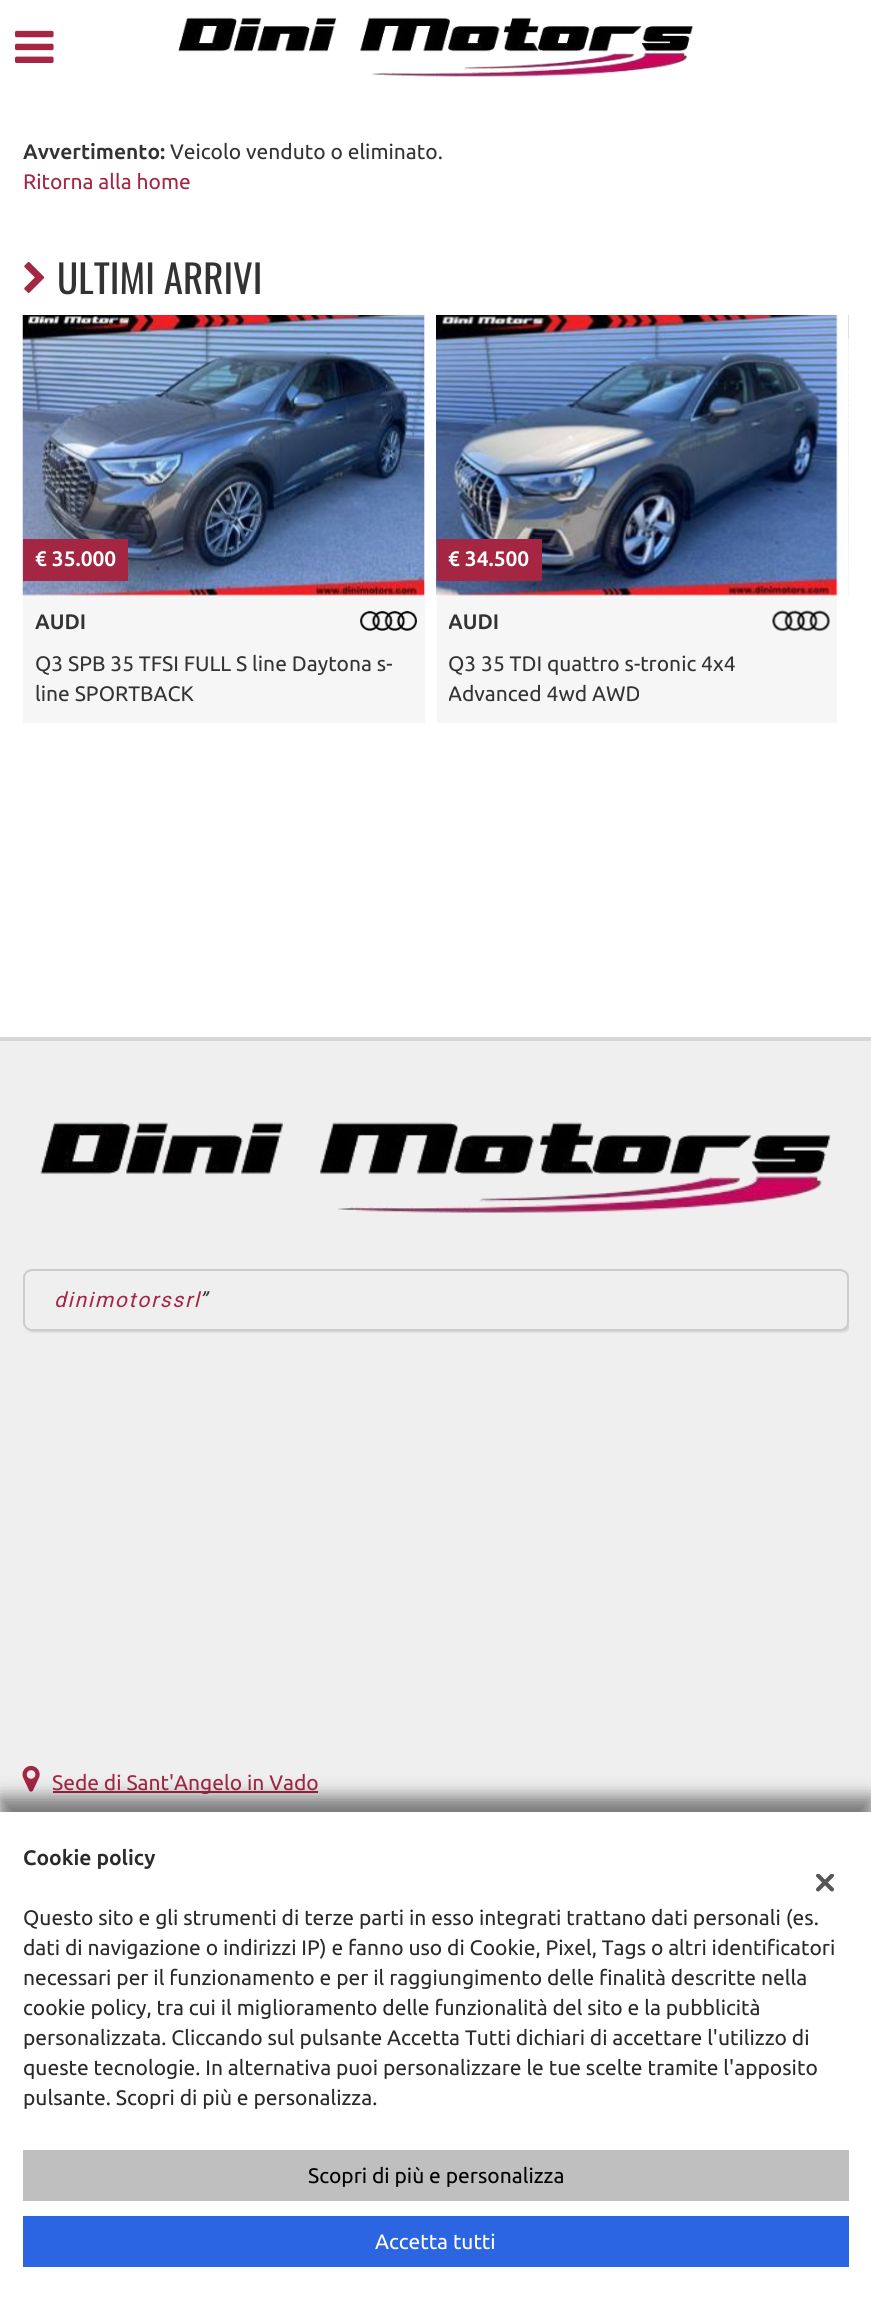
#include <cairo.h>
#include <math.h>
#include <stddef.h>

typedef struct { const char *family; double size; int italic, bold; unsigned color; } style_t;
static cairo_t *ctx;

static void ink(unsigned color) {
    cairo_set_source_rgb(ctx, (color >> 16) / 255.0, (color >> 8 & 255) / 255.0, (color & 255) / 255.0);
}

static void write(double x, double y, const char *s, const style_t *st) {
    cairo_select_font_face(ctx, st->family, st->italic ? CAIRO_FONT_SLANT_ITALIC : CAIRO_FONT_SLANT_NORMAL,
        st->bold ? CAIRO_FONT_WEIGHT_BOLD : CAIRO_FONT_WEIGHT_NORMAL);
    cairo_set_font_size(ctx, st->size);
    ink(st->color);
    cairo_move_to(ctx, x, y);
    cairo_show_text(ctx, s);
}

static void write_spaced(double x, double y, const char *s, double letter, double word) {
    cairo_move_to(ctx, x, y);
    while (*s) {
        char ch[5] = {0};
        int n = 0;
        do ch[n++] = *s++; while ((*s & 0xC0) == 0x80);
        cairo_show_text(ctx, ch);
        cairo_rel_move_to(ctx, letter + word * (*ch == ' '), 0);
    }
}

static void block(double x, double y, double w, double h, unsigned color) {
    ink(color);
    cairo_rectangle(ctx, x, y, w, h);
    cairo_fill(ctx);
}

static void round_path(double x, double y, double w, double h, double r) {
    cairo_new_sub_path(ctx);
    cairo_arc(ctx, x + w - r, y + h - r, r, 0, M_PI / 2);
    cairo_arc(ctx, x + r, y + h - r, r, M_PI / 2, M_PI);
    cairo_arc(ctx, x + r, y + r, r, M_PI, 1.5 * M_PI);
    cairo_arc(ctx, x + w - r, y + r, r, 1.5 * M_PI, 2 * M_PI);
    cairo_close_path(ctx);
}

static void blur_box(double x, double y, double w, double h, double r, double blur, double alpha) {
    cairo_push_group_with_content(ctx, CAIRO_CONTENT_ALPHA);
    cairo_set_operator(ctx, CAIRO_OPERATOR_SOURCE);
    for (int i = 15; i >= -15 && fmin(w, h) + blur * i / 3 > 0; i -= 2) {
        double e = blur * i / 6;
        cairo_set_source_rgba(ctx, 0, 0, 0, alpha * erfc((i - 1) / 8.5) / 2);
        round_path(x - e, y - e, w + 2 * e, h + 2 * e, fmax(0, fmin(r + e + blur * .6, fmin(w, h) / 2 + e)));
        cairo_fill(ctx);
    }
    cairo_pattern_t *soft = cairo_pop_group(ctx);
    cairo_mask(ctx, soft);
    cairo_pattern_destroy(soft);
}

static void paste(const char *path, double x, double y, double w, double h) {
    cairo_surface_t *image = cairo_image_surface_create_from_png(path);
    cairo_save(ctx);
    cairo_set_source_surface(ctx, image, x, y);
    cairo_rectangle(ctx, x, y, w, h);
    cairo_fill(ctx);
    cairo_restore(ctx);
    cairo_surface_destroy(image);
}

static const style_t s1 = {"Ubuntu", 21, 0, 1, 0x333333};
static const style_t s2 = {"Ubuntu", 21, 0, 0, 0x333333};
static const style_t s3 = {"Ubuntu", 21, 0, 0, 0xa52643};
static const style_t s4 = {"Oswald", 39, 0, 0, 0x333333};
static const style_t s5 = {"Ubuntu", 21, 0, 1, 0xffffff};
static const style_t s6 = {"Ubuntu", 21, 0, 1, 0x2b2929};
static const style_t s7 = {"Ubuntu", 21, 0, 0, 0x2b2929};
static const style_t s8 = {"Ubuntu", 21, 0, 0, 0x000000};
static const style_t s9 = {"Ubuntu", 21, 0, 0, 0xffffff};

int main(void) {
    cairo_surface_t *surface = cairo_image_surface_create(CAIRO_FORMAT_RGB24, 871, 2311);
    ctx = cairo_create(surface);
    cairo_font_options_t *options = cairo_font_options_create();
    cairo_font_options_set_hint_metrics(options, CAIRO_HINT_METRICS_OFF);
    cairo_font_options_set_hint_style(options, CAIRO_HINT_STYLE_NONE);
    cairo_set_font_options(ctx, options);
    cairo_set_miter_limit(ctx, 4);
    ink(0xffffff);
    cairo_paint(ctx);
    paste("pic1.png", 15, 30, 39, 33);
    paste("pic2.png", 178, 17, 516, 61);
    write(23, 159, "Avvertimento:", &s1);
    write(170, 159, "Veicolo venduto o eliminato.", &s2);
    write(23, 189, "Ritorna alla home", &s3);
    paste("pic3.png", 24, 261, 21, 32);
    write(57, 294, "ULTIMI ARRIVI", &s4);
    paste("pic4.png", 848, 315, 1, 280);
    block(23, 315, 402, 408, 0xf6f6f6);
    paste("pic5.png", 22, 315, 403, 281);
    block(23, 539, 105, 42, 0xa52643);
    write(35, 566, "€ 35.000", &s5);
    write(35, 629, "AUDI", &s1);
    paste("pic6.png", 360, 610, 57, 21);
    write(35, 671, "Q3 SPB 35 TFSI FULL S line Daytona s-", &s2);
    write(35, 701, "line SPORTBACK", &s2);
    block(437, 315, 400, 408, 0xf6f6f6);
    paste("pic7.png", 436, 315, 402, 281);
    block(437, 539, 105, 42, 0xa52643);
    write(448, 566, "€ 34.500", &s5);
    cairo_save(ctx);
    cairo_rectangle(ctx, 449, 608, 388, 30);
    cairo_clip(ctx);
    write(448, 629, "AUDI", &s1);
    cairo_restore(ctx);
    paste("pic8.png", 772, 610, 58, 22);
    write(448, 671, "Q3 35 TDI quattro s-tronic 4x4", &s2);
    cairo_save(ctx);
    cairo_rectangle(ctx, 449, 650, 376, 60);
    cairo_clip(ctx);
    write(448, 701, "Advanced 4wd AWD", &s2);
    cairo_restore(ctx);
    block(0, 1037, 871, 4, 0xd6d6d6);
    block(0, 1041, 871, 771, 0xefefef);
    paste("pic9.png", 40, 1122, 791, 92);
    cairo_save(ctx);
    cairo_rectangle(ctx, 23, 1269, 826, 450);
    cairo_clip(ctx);
    cairo_set_fill_rule(ctx, CAIRO_FILL_RULE_EVEN_ODD);
    cairo_new_path(ctx);
    cairo_move_to(ctx, 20, 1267);
    cairo_line_to(ctx, 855, 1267);
    cairo_line_to(ctx, 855, 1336);
    cairo_line_to(ctx, 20, 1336);
    cairo_close_path(ctx);
    cairo_move_to(ctx, 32, 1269);
    cairo_line_to(ctx, 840, 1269);
    cairo_curve_to(ctx, 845, 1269, 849, 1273, 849, 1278);
    cairo_line_to(ctx, 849, 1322);
    cairo_curve_to(ctx, 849, 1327, 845, 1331, 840, 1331);
    cairo_line_to(ctx, 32, 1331);
    cairo_curve_to(ctx, 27, 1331, 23, 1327, 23, 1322);
    cairo_line_to(ctx, 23, 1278);
    cairo_curve_to(ctx, 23, 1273, 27, 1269, 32, 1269);
    cairo_close_path(ctx);
    cairo_clip(ctx);
    ink(0xcccccc);
    blur_box(24, 1271, 827, 61, 9, 1, 1);
    cairo_restore(ctx);
    round_path(24, 1270, 824, 60, 8);
    ink(0xcccccc);
    cairo_stroke(ctx);
    cairo_select_font_face(ctx, "Roboto", CAIRO_FONT_SLANT_ITALIC, CAIRO_FONT_WEIGHT_NORMAL);
    ink(0xa52643);
    write_spaced(54, 1307, "dinimotorssrl", 1.75, 0);
    ink(0x333333);
    write_spaced(199, 1307, "”", 1.75, 0);
    paste("pic10.png", 22, 1765, 18, 27);
    block(53, 1791, 265, 2, 0xa52643);
    write(52, 1790, "Sede di Sant'Angelo in Vado", &s3);
    ink(0x000000);
    blur_box(0, 1797, 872, 500, 0, 9, 0.5);
    block(0, 1812, 871, 499, 0xffffff);
    write(23, 1865, "Cookie policy", &s6);
    write(23, 1925, "Questo sito e gli strumenti di terze parti in esso integrati trattano dati personali (es.", &s7);
    write(23, 1955, "dati di navigazione o indirizzi IP) e fanno uso di Cookie, Pixel, Tags o altri identificatori", &s7);
    write(23, 1985, "necessari per il funzionamento e per il raggiungimento delle finalità descritte nella", &s7);
    write(23, 2015, "cookie policy, tra cui il miglioramento delle funzionalità del sito e la pubblicità", &s7);
    write(23, 2045, "personalizzata. Cliccando sul pulsante Accetta Tutti dichiari di accettare l'utilizzo di", &s7);
    write(23, 2075, "queste tecnologie. In alternativa puoi personalizzare le tue scelte tramite l'apposito", &s7);
    write(23, 2105, "pulsante. Scopri di più e personalizza.", &s7);
    block(23, 2150, 826, 51, 0xbfbfbf);
    write(308, 2183, "Scopri di più e personalizza", &s8);
    block(23, 2216, 826, 51, 0x2c65e1);
    write(375, 2249, "Accetta tutti", &s9);
    paste("pic11.png", 816, 1874, 18, 18);
    cairo_surface_write_to_png(surface, "screenshot.png");
    cairo_font_options_destroy(options);
    cairo_destroy(ctx);
    cairo_surface_destroy(surface);
    return 0;
}
